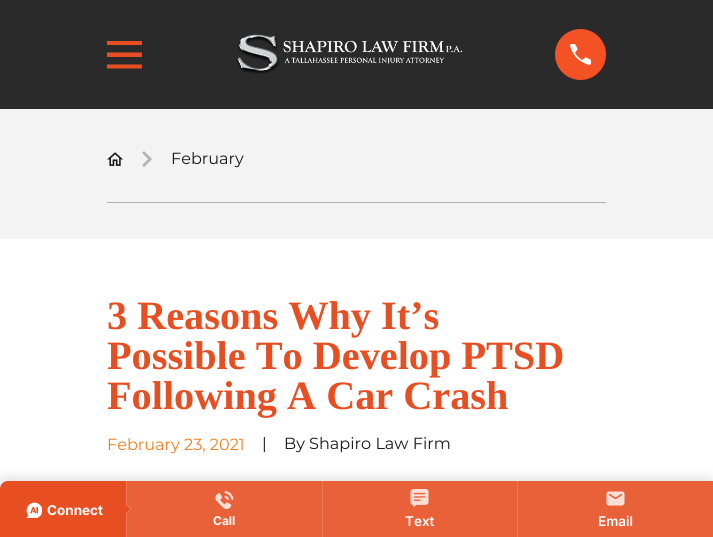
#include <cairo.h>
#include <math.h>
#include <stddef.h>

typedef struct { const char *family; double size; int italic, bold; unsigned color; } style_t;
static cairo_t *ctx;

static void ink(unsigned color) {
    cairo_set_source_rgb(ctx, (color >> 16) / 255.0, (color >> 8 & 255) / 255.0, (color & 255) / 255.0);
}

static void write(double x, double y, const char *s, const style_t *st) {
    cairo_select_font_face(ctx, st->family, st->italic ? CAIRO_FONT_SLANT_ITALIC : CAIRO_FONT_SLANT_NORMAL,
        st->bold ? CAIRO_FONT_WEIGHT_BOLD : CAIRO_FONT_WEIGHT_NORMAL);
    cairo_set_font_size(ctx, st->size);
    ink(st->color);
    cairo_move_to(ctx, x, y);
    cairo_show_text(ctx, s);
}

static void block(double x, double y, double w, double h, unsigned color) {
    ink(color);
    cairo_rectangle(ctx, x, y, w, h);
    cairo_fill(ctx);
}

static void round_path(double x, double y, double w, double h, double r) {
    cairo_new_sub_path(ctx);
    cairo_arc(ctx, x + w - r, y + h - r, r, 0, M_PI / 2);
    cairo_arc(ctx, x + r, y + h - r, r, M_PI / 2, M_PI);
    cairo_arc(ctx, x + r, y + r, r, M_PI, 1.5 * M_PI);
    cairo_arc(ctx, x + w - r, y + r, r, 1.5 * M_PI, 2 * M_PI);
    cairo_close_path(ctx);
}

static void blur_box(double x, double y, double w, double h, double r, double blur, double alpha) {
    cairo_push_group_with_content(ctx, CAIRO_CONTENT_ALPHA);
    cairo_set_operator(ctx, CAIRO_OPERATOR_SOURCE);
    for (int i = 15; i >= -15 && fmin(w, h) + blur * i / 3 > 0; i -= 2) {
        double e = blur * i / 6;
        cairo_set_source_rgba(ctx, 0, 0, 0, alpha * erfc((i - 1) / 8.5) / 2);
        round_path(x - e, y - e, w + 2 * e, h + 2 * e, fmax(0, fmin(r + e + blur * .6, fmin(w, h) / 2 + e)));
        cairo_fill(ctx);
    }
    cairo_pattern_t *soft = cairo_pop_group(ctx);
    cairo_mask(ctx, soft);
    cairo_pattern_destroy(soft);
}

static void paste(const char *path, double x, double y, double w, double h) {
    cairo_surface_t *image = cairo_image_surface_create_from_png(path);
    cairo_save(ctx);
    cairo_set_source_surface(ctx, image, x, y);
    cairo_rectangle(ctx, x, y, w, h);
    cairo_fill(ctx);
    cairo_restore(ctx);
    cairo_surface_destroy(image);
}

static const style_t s1 = {"Montserrat", 16.1, 0, 0, 0x191919};
static const style_t s2 = {"Liberation Serif", 40.25, 0, 1, 0xe74f22};
static const style_t s3 = {"Montserrat", 16.1, 0, 0, 0xef8024};
static const style_t s4 = {"Inter", 13.5, 0, 1, 0xffffff};
static const style_t s5 = {"Inter", 12, 0, 1, 0xffffff};
static const style_t s6 = {"Inter SemiBold", 13.5, 0, 0, 0xffffff};

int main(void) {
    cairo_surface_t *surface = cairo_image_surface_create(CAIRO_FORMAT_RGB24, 713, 537);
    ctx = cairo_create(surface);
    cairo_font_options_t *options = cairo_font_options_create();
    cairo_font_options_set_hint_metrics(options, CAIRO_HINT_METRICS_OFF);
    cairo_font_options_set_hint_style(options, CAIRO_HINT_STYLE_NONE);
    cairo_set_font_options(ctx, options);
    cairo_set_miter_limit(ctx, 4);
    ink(0xffffff);
    cairo_paint(ctx);
    block(0, 0, 713, 109, 0x2a2a2a);
    cairo_save(ctx);
    cairo_rectangle(ctx, 107, 37, 35, 35);
    cairo_clip(ctx);
    ink(0xe74f22);
    cairo_new_path(ctx);
    cairo_move_to(ctx, 107, 41);
    cairo_line_to(ctx, 107, 45);
    cairo_line_to(ctx, 142.5, 45);
    cairo_line_to(ctx, 142.5, 41);
    cairo_close_path(ctx);
    cairo_move_to(ctx, 107, 52.5);
    cairo_line_to(ctx, 107, 57);
    cairo_line_to(ctx, 142.5, 57);
    cairo_line_to(ctx, 142.5, 52.5);
    cairo_close_path(ctx);
    cairo_move_to(ctx, 107, 64.5);
    cairo_line_to(ctx, 107, 68.5);
    cairo_line_to(ctx, 142.5, 68.5);
    cairo_line_to(ctx, 142.5, 64.5);
    cairo_close_path(ctx);
    cairo_fill(ctx);
    cairo_restore(ctx);
    paste("pic1.png", 237, 34, 225, 40);
    ink(0xf45124);
    cairo_arc(ctx, 580.5, 54.5, 25.5, 0, 2 * M_PI);
    cairo_fill(ctx);
    paste("pic2.png", 570, 44, 21, 21);
    block(0, 109, 713, 130, 0xf3f3f3);
    block(107, 202, 499, 1, 0xb2b2b2);
    paste("pic3.png", 107, 152, 16, 14);
    paste("pic4.png", 142, 151, 10, 16);
    write(171, 164, "February", &s1);
    write(107, 329, "3 Reasons Why It’s", &s2);
    write(107, 369, "Possible To Develop PTSD", &s2);
    write(107, 409, "Following A Car Crash", &s2);
    write(107, 450, "February 23, 2021", &s3);
    write(262, 449, "|", &s1);
    write(284, 449, "By Shapiro Law Firm", &s1);
    ink(0x000000);
    blur_box(-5, 476, 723, 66, 13, 5, 0.1);
    ink(0xe74f22);
    cairo_new_path(ctx);
    cairo_move_to(ctx, 8, 481);
    cairo_line_to(ctx, 713, 481);
    cairo_line_to(ctx, 713, 537);
    cairo_line_to(ctx, 0, 537);
    cairo_line_to(ctx, 0, 489);
    cairo_curve_to(ctx, 0, 484.5, 3.5, 481, 8, 481);
    cairo_close_path(ctx);
    cairo_fill(ctx);
    block(126, 481, 1, 56, 0xed7b59);
    paste("pic5.png", 26, 502, 16, 16);
    write(47, 515, "Connect", &s4);
    block(127, 481, 195, 56, 0xe96138);
    ink(0xe74f22);
    cairo_new_path(ctx);
    cairo_move_to(ctx, 127.5, 505);
    cairo_line_to(ctx, 131.5, 509);
    cairo_line_to(ctx, 127.5, 513);
    cairo_line_to(ctx, 123, 509);
    cairo_close_path(ctx);
    cairo_fill(ctx);
    ink(0xed7d5b);
    cairo_new_path(ctx);
    cairo_move_to(ctx, 127.5, 505);
    cairo_line_to(ctx, 131.5, 509);
    cairo_line_to(ctx, 130, 509);
    cairo_line_to(ctx, 127.5, 506);
    cairo_close_path(ctx);
    cairo_move_to(ctx, 131.5, 509);
    cairo_line_to(ctx, 127.5, 513);
    cairo_line_to(ctx, 127.5, 512);
    cairo_line_to(ctx, 130, 509);
    cairo_close_path(ctx);
    cairo_fill(ctx);
    block(322, 481, 1, 56, 0xed7b59);
    paste("pic6.png", 215, 491, 19, 18);
    write(213, 525, "Call", &s5);
    block(517, 481, 1, 56, 0xed7b59);
    block(323, 481, 194, 56, 0xe96138);
    paste("pic7.png", 410, 489, 19, 18);
    write(405, 526, "Text", &s6);
    block(518, 481, 195, 56, 0xe96138);
    paste("pic8.png", 606, 491, 19, 15);
    write(598, 526, "Email", &s6);
    cairo_surface_write_to_png(surface, "screenshot.png");
    cairo_font_options_destroy(options);
    cairo_destroy(ctx);
    cairo_surface_destroy(surface);
    return 0;
}
